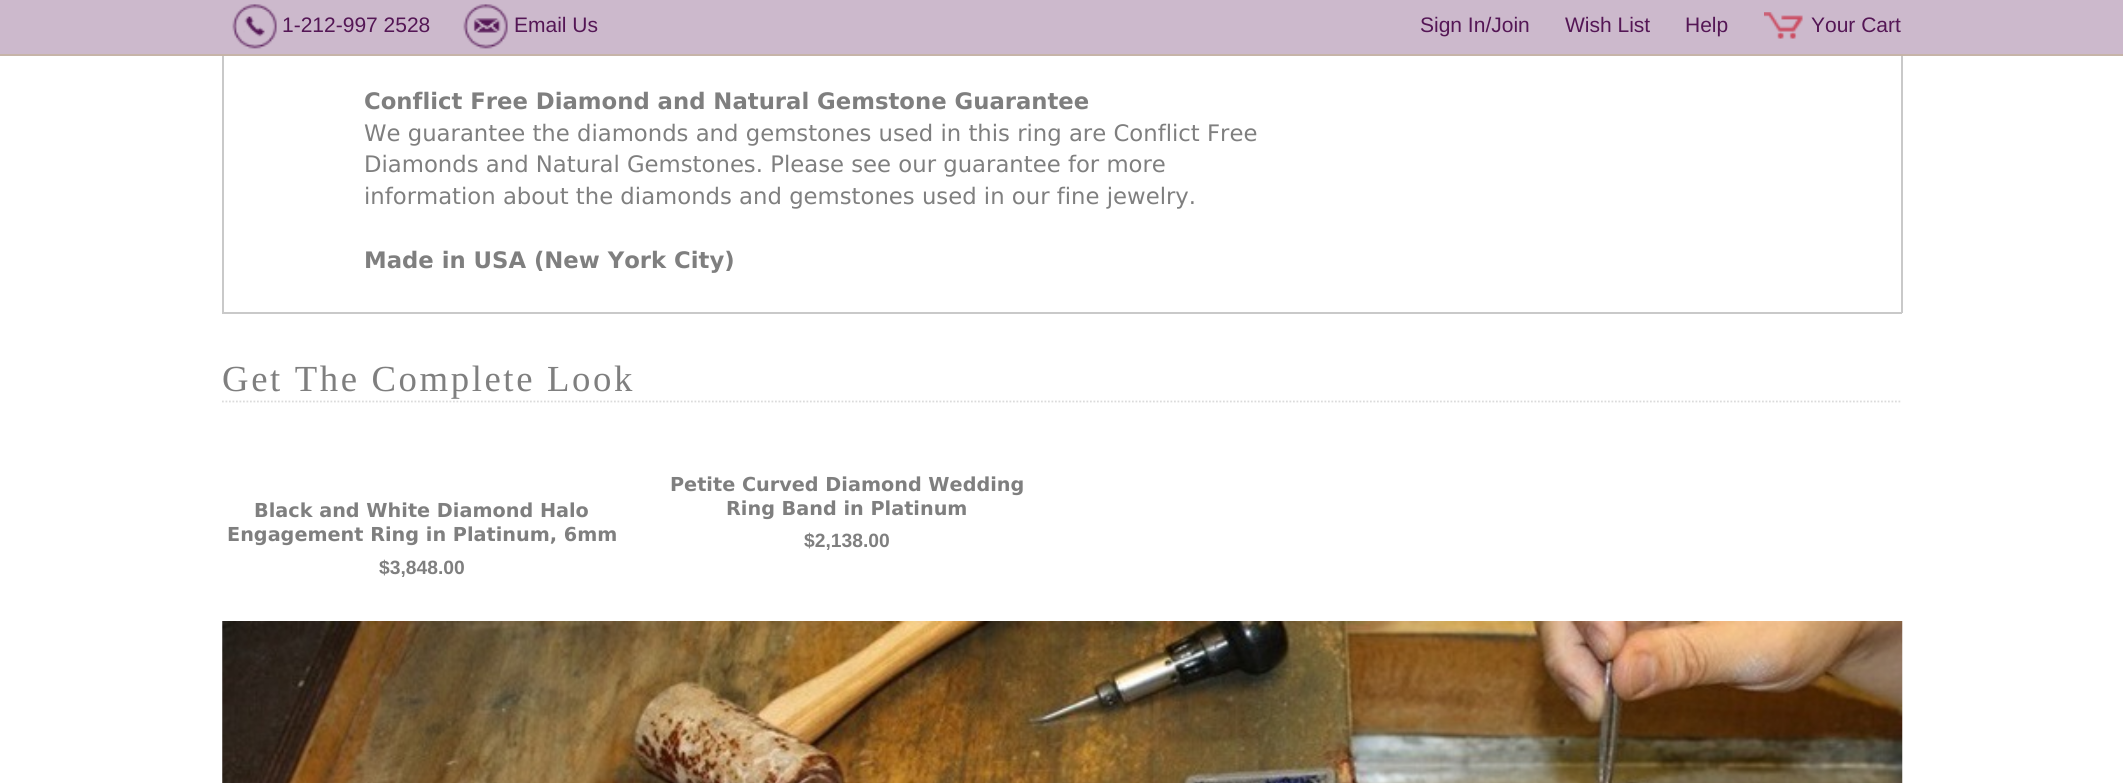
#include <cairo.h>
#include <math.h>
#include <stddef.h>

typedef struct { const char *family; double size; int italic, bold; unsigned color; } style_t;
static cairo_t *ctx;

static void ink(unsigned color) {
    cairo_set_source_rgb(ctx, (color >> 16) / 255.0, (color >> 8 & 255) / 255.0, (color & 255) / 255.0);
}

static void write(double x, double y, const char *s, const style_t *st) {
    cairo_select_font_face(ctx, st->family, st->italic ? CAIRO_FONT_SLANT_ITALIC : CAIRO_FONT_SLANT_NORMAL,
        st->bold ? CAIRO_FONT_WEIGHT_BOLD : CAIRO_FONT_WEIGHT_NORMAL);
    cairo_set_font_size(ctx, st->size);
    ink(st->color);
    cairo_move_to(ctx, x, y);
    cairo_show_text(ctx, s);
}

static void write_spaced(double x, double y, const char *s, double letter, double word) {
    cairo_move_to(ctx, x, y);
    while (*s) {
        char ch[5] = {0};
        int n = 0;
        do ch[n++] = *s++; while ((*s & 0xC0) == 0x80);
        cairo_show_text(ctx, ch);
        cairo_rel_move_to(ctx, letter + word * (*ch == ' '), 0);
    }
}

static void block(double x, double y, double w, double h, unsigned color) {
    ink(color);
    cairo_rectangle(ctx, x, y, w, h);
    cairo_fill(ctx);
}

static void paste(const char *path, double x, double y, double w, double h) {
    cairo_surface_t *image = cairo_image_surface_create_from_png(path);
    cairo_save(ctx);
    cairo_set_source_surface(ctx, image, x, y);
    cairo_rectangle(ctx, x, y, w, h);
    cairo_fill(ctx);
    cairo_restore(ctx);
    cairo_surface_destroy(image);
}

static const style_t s1 = {"Liberation Sans", 21, 0, 0, 0x541655};
static const style_t s2 = {"DejaVu Sans", 22.75, 0, 1, 0x7f7f7f};
static const style_t s3 = {"DejaVu Sans", 22.75, 0, 0, 0x7f7f7f};
static const style_t s4 = {"DejaVu Sans", 19.25, 0, 1, 0x7f7f7f};
static const style_t s5 = {"Liberation Sans", 19.25, 0, 1, 0x7f7f7f};

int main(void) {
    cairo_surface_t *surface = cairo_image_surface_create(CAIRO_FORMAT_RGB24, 2123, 783);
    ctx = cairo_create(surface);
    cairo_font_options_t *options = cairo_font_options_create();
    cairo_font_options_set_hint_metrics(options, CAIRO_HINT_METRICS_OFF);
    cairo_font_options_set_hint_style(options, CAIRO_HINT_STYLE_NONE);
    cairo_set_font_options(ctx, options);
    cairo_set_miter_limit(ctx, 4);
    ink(0xffffff);
    cairo_paint(ctx);
    block(0, 0, 2123, 54, 0xccb9cc);
    block(0, 54, 2123, 2, 0xc6b4a8);
    paste("pic1.png", 232, 4, 45, 45);
    write(282, 32, "1-212-997 2528", &s1);
    paste("pic2.png", 463, 4, 45, 45);
    write(514, 32, "Email Us", &s1);
    write(1420, 32, "Sign In/Join", &s1);
    write(1565, 32, "Wish List", &s1);
    write(1685, 32, "Help", &s1);
    paste("pic3.png", 1764, 12, 39, 27);
    write(1811, 32, "Your Cart", &s1);
    block(1901, 56, 2, 257, 0xc9c9c9);
    block(222, 312, 1680, 2, 0xc9c9c9);
    block(222, 56, 2, 257, 0xc9c9c9);
    write(364, 109, "Conflict Free Diamond and Natural Gemstone Guarantee", &s2);
    write(364, 141, "We guarantee the diamonds and gemstones used in this ring are Conflict Free", &s3);
    write(364, 172, "Diamonds and Natural Gemstones. Please see our guarantee for more", &s3);
    write(364, 204, "information about the diamonds and gemstones used in our fine jewelry.", &s3);
    write(364, 268, "Made in USA (New York City)", &s2);
    cairo_new_path(ctx);
    cairo_move_to(ctx, 222, 401.5);
    cairo_line_to(ctx, 1902, 401.5);
    ink(0xdbdbdb);
    cairo_set_line_width(ctx, 1.8);
    cairo_set_dash(ctx, (double[]){1.75, 1.75}, 2, 0);
    cairo_stroke(ctx);
    cairo_select_font_face(ctx, "Liberation Serif", CAIRO_FONT_SLANT_NORMAL, CAIRO_FONT_WEIGHT_NORMAL);
    cairo_set_font_size(ctx, 36.75);
    ink(0x7f7f7f);
    write_spaced(222, 391, "Get The Complete Look", 2.6, 0);
    write(254, 517, "Black and White Diamond Halo", &s4);
    write(227, 541, "Engagement Ring in Platinum, 6mm", &s4);
    write(379, 574, "$3,848.00", &s5);
    write(670, 491, "Petite Curved Diamond Wedding", &s4);
    write(726, 515, "Ring Band in Platinum", &s4);
    write(804, 547, "$2,138.00", &s5);
    paste("pic4.png", 222, 621, 1681, 162);
    cairo_surface_write_to_png(surface, "screenshot.png");
    cairo_font_options_destroy(options);
    cairo_destroy(ctx);
    cairo_surface_destroy(surface);
    return 0;
}
